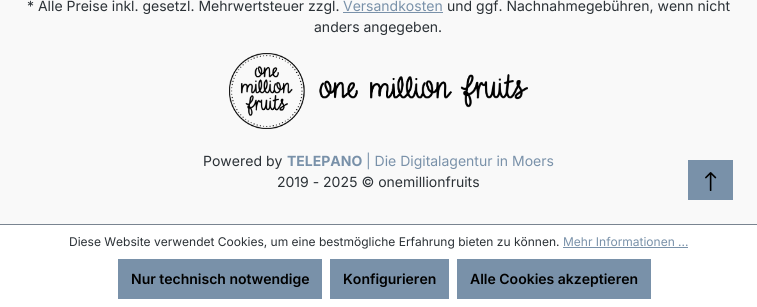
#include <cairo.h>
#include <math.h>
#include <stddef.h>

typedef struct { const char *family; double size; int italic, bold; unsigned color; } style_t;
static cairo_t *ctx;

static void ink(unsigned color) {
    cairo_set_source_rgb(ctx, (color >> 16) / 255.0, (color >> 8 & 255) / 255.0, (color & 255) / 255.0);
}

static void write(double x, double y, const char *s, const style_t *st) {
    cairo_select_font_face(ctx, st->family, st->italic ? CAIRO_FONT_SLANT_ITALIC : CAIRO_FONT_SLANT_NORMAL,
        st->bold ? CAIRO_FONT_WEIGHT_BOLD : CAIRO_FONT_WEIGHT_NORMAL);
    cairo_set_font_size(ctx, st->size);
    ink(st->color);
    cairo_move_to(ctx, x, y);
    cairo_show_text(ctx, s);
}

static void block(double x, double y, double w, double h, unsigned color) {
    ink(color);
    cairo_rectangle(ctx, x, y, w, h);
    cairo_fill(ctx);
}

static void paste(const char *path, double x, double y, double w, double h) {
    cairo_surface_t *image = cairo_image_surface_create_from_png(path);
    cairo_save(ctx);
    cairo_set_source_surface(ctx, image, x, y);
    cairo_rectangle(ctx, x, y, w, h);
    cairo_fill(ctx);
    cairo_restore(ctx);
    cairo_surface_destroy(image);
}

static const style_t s1 = {"Inter", 14, 0, 0, 0x2b3136};
static const style_t s2 = {"Inter", 14, 0, 0, 0x7991a9};
static const style_t s3 = {"Inter", 14, 0, 1, 0x7991a9};
static const style_t s4 = {"Inter", 12, 0, 0, 0x2b3136};
static const style_t s5 = {"Inter", 12, 0, 0, 0x7991a9};
static const style_t s6 = {"Inter SemiBold", 14, 0, 0, 0x000000};

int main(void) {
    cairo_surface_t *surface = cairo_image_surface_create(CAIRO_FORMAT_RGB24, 757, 307);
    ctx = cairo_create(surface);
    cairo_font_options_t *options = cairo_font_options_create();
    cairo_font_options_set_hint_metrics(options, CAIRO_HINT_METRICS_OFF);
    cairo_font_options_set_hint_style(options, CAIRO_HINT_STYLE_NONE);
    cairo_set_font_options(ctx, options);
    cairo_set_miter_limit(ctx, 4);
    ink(0xffffff);
    cairo_paint(ctx);
    block(0, 0, 757, 224, 0xf9f9f9);
    write(27, 11, "* Alle Preise inkl. gesetzl. Mehrwertsteuer zzgl.", &s1);
    write(343, 11, "Versandkosten", &s2);
    block(343, 12, 100, 1, 0x7991a9);
    write(447, 11, "und ggf. Nachnahmegebühren, wenn nicht", &s1);
    write(314, 32, "anders angegeben.", &s1);
    paste("pic1.png", 229, 53, 299, 76);
    write(203, 166, "Powered by", &s1);
    write(287, 166, "TELEPANO", &s3);
    write(366, 166, "| Die Digitalagentur in Moers", &s2);
    write(277, 187, "2019 - 2025 © onemillionfruits", &s1);
    block(688, 160, 45, 40, 0x7991a9);
    paste("pic2.png", 705, 172, 12, 19);
    block(0, 224, 757, 1, 0x798490);
    write(69, 246, "Diese Website verwendet Cookies, um eine bestmögliche Erfahrung bieten zu können.", &s4);
    write(563, 246, "Mehr Informationen ...", &s5);
    block(563, 247, 125, 1, 0x7991a9);
    block(118, 259, 204, 40, 0x7991a9);
    write(131, 284, "Nur technisch notwendige", &s6);
    block(330, 259, 119, 40, 0x7991a9);
    write(343, 284, "Konfigurieren", &s6);
    block(457, 259, 194, 40, 0x7991a9);
    write(470, 284, "Alle Cookies akzeptieren", &s6);
    cairo_surface_write_to_png(surface, "screenshot.png");
    cairo_font_options_destroy(options);
    cairo_destroy(ctx);
    cairo_surface_destroy(surface);
    return 0;
}
